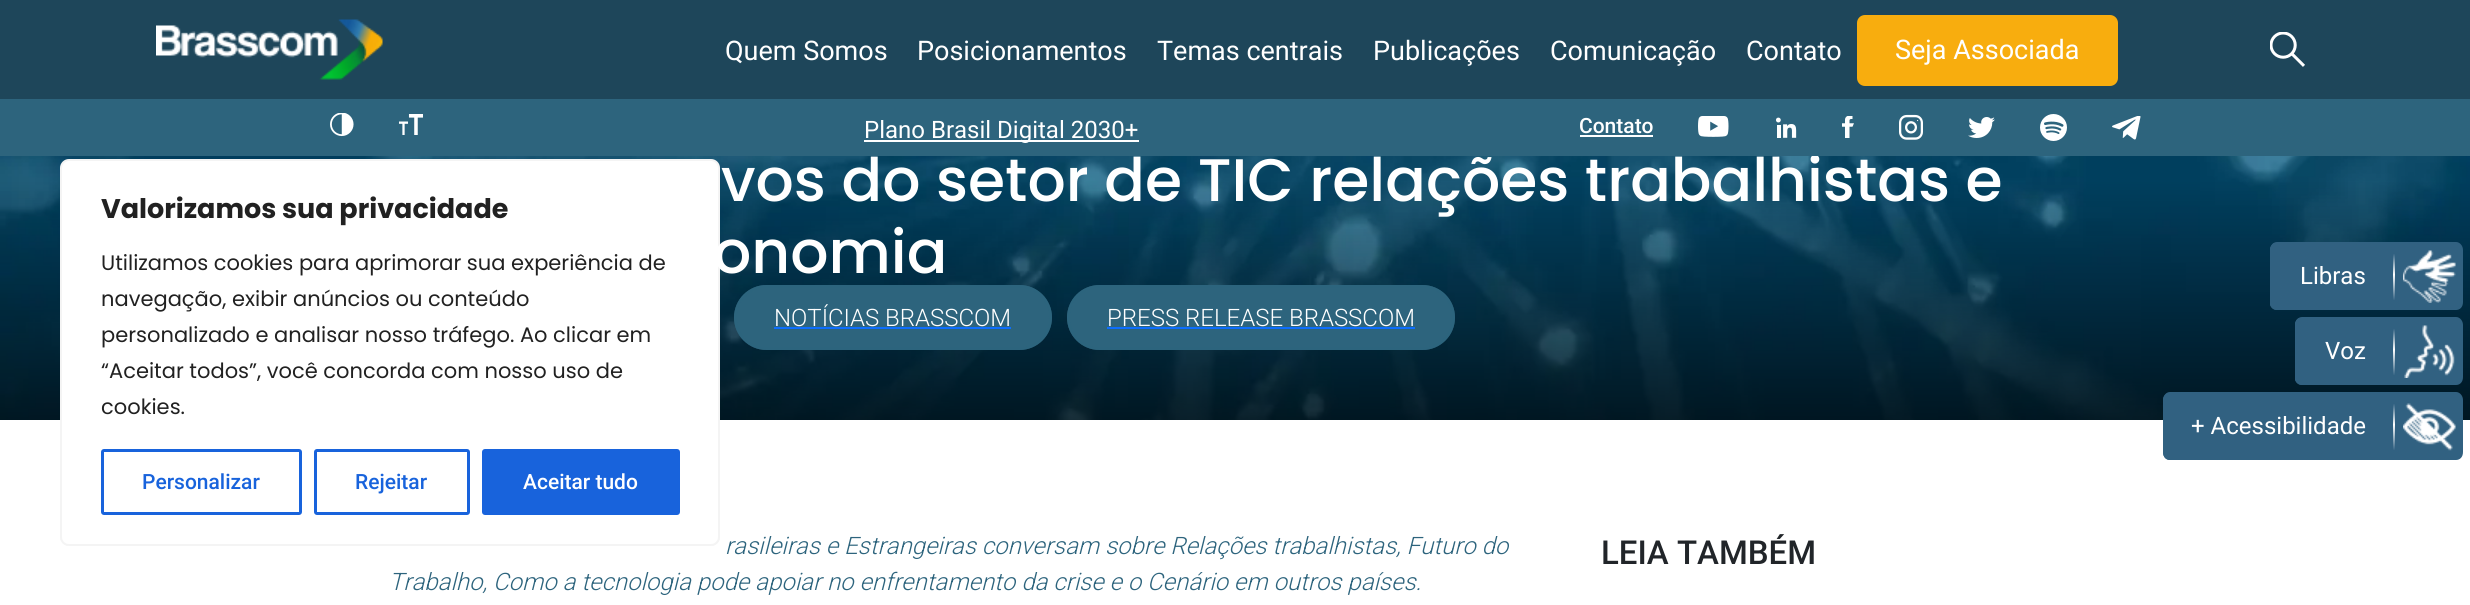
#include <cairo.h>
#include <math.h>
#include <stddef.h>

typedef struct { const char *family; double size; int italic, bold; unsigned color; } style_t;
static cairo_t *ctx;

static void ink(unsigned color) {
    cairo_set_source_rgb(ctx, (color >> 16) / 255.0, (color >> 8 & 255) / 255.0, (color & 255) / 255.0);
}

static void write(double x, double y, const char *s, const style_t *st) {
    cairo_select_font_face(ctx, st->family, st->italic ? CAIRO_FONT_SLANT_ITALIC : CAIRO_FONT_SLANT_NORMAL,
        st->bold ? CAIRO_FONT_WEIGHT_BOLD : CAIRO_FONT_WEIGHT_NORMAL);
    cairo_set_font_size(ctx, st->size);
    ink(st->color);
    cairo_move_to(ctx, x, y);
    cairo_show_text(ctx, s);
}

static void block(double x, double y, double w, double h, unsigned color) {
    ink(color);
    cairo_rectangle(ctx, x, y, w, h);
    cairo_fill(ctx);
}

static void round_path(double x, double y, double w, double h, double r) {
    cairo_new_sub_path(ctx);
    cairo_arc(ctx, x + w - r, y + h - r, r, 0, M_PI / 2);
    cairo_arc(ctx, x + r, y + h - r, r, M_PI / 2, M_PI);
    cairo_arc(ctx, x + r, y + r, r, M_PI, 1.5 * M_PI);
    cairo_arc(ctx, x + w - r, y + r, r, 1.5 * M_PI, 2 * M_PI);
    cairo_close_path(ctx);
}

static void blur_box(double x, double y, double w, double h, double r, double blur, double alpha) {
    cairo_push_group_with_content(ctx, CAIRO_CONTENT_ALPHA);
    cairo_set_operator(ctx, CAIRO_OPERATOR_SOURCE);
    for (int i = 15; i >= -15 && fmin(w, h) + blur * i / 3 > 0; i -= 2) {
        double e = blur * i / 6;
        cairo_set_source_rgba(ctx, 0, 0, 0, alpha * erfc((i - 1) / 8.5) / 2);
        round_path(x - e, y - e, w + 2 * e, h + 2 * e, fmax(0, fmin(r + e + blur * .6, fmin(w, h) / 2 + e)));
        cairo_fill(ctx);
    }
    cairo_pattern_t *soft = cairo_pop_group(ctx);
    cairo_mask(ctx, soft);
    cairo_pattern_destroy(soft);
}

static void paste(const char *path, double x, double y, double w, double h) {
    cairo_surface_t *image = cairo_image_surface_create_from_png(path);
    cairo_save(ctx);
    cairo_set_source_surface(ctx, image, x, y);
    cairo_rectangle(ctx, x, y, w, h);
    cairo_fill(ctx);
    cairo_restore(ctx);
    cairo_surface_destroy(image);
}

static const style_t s1 = {"Roboto", 27, 0, 0, 0xffffff};
static const style_t s2 = {"Poppins Medium", 60, 0, 0, 0xffffff};
static const style_t s3 = {"Roboto", 24, 0, 0, 0xffffff};
static const style_t s4 = {"Roboto Medium", 21, 0, 0, 0xffffff};
static const style_t s5 = {"Poppins", 27, 0, 1, 0x212121};
static const style_t s6 = {"Poppins", 21, 0, 0, 0x212121};
static const style_t s7 = {"Roboto Medium", 21, 0, 0, 0x1863dc};
static const style_t s8 = {"Roboto Light", 24, 0, 0, 0xffffff};
static const style_t s9 = {"Roboto Light", 24, 1, 0, 0x2d647d};
static const style_t s10 = {"Roboto Medium", 33, 0, 0, 0x212529};

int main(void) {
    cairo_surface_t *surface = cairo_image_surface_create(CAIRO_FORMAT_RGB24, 2470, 605);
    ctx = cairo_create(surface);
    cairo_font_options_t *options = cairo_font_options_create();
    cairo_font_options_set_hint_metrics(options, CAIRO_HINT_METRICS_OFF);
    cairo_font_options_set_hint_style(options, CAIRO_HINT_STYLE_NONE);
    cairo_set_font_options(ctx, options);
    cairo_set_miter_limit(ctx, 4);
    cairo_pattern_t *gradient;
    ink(0xffffff);
    cairo_paint(ctx);
    block(0, 0, 2470, 99, 0x1e465a);
    paste("pic1.png", 156, 19, 227, 61);
    write(725, 60, "Quem Somos", &s1);
    write(917, 60, "Posicionamentos", &s1);
    write(1157, 60, "Temas centrais", &s1);
    write(1373, 60, "Publicações", &s1);
    write(1550, 60, "Comunicação", &s1);
    write(1746, 60, "Contato", &s1);
    ink(0xf8ad0e);
    round_path(1857, 15, 261, 71, 8);
    cairo_fill(ctx);
    write(1895, 59, "Seja Associada", &s1);
    paste("pic2.png", 2270, 32, 35, 35);
    paste("pic12.png", 0, 156, 2470, 264);
    write(721, 201, "vos do setor de TIC relações trabalhistas e", &s2);
    block(0, 99, 2470, 57, 0x2d647d);
    paste("pic3.png", 330, 113, 24, 24);
    paste("pic4.png", 399, 114, 24, 21);
    block(864, 140, 275, 2, 0xffffff);
    write(864, 138, "Plano Brasil Digital 2030+", &s3);
    write(1579, 133, "Contato", &s4);
    block(1580, 135, 73, 2, 0xffffff);
    paste("pic5.png", 1698, 116, 31, 21);
    paste("pic6.png", 1776, 117, 21, 21);
    paste("pic7.png", 1842, 116, 12, 22);
    paste("pic8.png", 1899, 114, 24, 26);
    paste("pic9.png", 1968, 117, 27, 21);
    paste("pic10.png", 2040, 114, 27, 27);
    paste("pic11.png", 2112, 116, 29, 24);
    ink(0x2d647d);
    round_path(734, 285, 318, 65, 32.5);
    cairo_fill(ctx);
    round_path(735.5, 286.5, 315, 62, 31);
    cairo_set_source_rgba(ctx, 0.176, 0.392, 0.49, 0.68);
    cairo_set_line_width(ctx, 3);
    cairo_stroke(ctx);
    cairo_save(ctx);
    round_path(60, 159, 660, 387, 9);
    cairo_clip(ctx);
    ink(0xacabab);
    blur_box(60, 158, 660, 387, 9, 7.5, 0.3);
    cairo_restore(ctx);
    ink(0xffffff);
    round_path(61, 160, 658, 385, 8);
    cairo_fill_preserve(ctx);
    ink(0xf4f4f4);
    cairo_set_line_width(ctx, 2);
    cairo_stroke(ctx);
    write(101, 218, "Valorizamos sua privacidade", &s5);
    write(101, 270, "Utilizamos cookies para aprimorar sua experiência de", &s6);
    write(101, 306, "navegação, exibir anúncios ou conteúdo", &s6);
    write(101, 342, "personalizado e analisar nosso tráfego. Ao clicar em", &s6);
    write(101, 378, "“Aceitar todos”, você concorda com nosso uso de", &s6);
    write(101, 414, "cookies.", &s6);
    round_path(102.5, 450.5, 198, 63, 1.5);
    ink(0x1863dc);
    cairo_set_line_width(ctx, 3);
    cairo_stroke(ctx);
    write(142, 489, "Personalizar", &s7);
    round_path(315.5, 450.5, 153, 63, 1.5);
    cairo_stroke(ctx);
    write(355, 489, "Rejeitar", &s7);
    round_path(483.5, 450.5, 195, 63, 1.5);
    cairo_fill_preserve(ctx);
    cairo_stroke(ctx);
    write(523, 489, "Aceitar tudo", &s4);
    write(713, 273, "onomia", &s2);
    write(774, 326, "NOTÍCIAS BRASSCOM", &s8);
    block(774, 327, 237, 2, 0x0d6efd);
    ink(0x2d647d);
    round_path(1067, 285, 388, 65, 32.5);
    cairo_fill(ctx);
    round_path(1068.5, 286.5, 385, 62, 31);
    cairo_set_source_rgba(ctx, 0.176, 0.392, 0.49, 0.68);
    cairo_stroke(ctx);
    write(1107, 326, "PRESS RELEASE BRASSCOM", &s8);
    block(1107, 327, 308, 2, 0x0d6efd);
    write(725, 554, "rasileiras e Estrangeiras conversam sobre Relações trabalhistas, Futuro do", &s9);
    write(389, 590, "Trabalho, Como a tecnologia pode apoiar no enfrentamento da crise e o Cenário em outros países.", &s9);
    write(1601, 564, "LEIA TAMBÉM", &s10);
    ink(0x316181);
    cairo_new_path(ctx);
    cairo_move_to(ctx, 2456, 242);
    cairo_line_to(ctx, 2277, 242);
    cairo_curve_to(ctx, 2273, 242, 2270, 246, 2270, 250);
    cairo_line_to(ctx, 2270, 302);
    cairo_curve_to(ctx, 2270, 307, 2273, 310, 2277, 310);
    cairo_line_to(ctx, 2456, 310);
    cairo_curve_to(ctx, 2460, 310, 2463, 307, 2463, 302);
    cairo_line_to(ctx, 2463, 250);
    cairo_curve_to(ctx, 2463, 246, 2460, 242, 2456, 242);
    cairo_close_path(ctx);
    cairo_fill(ctx);
    cairo_new_path(ctx);
    cairo_move_to(ctx, 2399, 310);
    cairo_curve_to(ctx, 2401, 308, 2403, 306, 2403, 303);
    cairo_line_to(ctx, 2403, 251);
    cairo_curve_to(ctx, 2403, 247, 2399, 243, 2395, 243);
    cairo_line_to(ctx, 2274, 243);
    cairo_curve_to(ctx, 2272, 244, 2271, 246, 2270, 248);
    cairo_line_to(ctx, 2270, 305);
    cairo_curve_to(ctx, 2271, 308, 2274, 310, 2277, 310);
    cairo_close_path(ctx);
    cairo_fill(ctx);
    write(2300, 284, "Libras", &s3);
    gradient = cairo_pattern_create_linear(2393, 310, 2393, 242);
    cairo_pattern_add_color_stop_rgba(gradient, 0.14, 0.192, 0.38, 0.506, 1);
    cairo_pattern_add_color_stop_rgba(gradient, 0.52, 1, 1, 1, 1);
    cairo_pattern_add_color_stop_rgba(gradient, 0.83, 0.192, 0.38, 0.506, 1);
    cairo_set_source(ctx, gradient);
    cairo_pattern_destroy(gradient);
    cairo_rectangle(ctx, 2393, 254, 2, 46);
    cairo_fill(ctx);
    paste("pic13.png", 2403, 250, 53, 53);
    ink(0x316181);
    cairo_new_path(ctx);
    cairo_move_to(ctx, 2456, 317);
    cairo_line_to(ctx, 2302, 317);
    cairo_curve_to(ctx, 2298, 317, 2295, 321, 2295, 325);
    cairo_line_to(ctx, 2295, 377);
    cairo_curve_to(ctx, 2295, 382, 2298, 385, 2302, 385);
    cairo_line_to(ctx, 2456, 385);
    cairo_curve_to(ctx, 2460, 385, 2463, 382, 2463, 377);
    cairo_line_to(ctx, 2463, 325);
    cairo_curve_to(ctx, 2463, 321, 2460, 317, 2456, 317);
    cairo_close_path(ctx);
    cairo_fill(ctx);
    cairo_new_path(ctx);
    cairo_move_to(ctx, 2399, 385);
    cairo_curve_to(ctx, 2401, 383, 2403, 381, 2403, 378);
    cairo_line_to(ctx, 2403, 326);
    cairo_curve_to(ctx, 2403, 322, 2399, 318, 2395, 318);
    cairo_line_to(ctx, 2299, 318);
    cairo_curve_to(ctx, 2297, 319, 2296, 320, 2295, 323);
    cairo_line_to(ctx, 2295, 380);
    cairo_curve_to(ctx, 2296, 383, 2299, 385, 2302, 385);
    cairo_close_path(ctx);
    cairo_fill(ctx);
    write(2325, 359, "Voz", &s3);
    gradient = cairo_pattern_create_linear(2393, 385, 2393, 317);
    cairo_pattern_add_color_stop_rgba(gradient, 0.14, 0.192, 0.38, 0.506, 1);
    cairo_pattern_add_color_stop_rgba(gradient, 0.52, 1, 1, 1, 1);
    cairo_pattern_add_color_stop_rgba(gradient, 0.83, 0.192, 0.38, 0.506, 1);
    cairo_set_source(ctx, gradient);
    cairo_pattern_destroy(gradient);
    cairo_rectangle(ctx, 2393, 329, 2, 46);
    cairo_fill(ctx);
    paste("pic14.png", 2404, 325, 51, 53);
    ink(0x316181);
    cairo_new_path(ctx);
    cairo_move_to(ctx, 2456, 392);
    cairo_line_to(ctx, 2170, 392);
    cairo_curve_to(ctx, 2166, 392, 2163, 396, 2163, 400);
    cairo_line_to(ctx, 2163, 452);
    cairo_curve_to(ctx, 2163, 457, 2166, 460, 2170, 460);
    cairo_line_to(ctx, 2456, 460);
    cairo_curve_to(ctx, 2460, 460, 2463, 457, 2463, 452);
    cairo_line_to(ctx, 2463, 400);
    cairo_curve_to(ctx, 2463, 396, 2460, 392, 2456, 392);
    cairo_close_path(ctx);
    cairo_fill(ctx);
    cairo_new_path(ctx);
    cairo_move_to(ctx, 2399, 460);
    cairo_curve_to(ctx, 2401, 458, 2403, 456, 2403, 453);
    cairo_line_to(ctx, 2403, 401);
    cairo_curve_to(ctx, 2403, 397, 2399, 393, 2395, 393);
    cairo_line_to(ctx, 2168, 393);
    cairo_curve_to(ctx, 2165, 394, 2163, 397, 2163, 400);
    cairo_line_to(ctx, 2163, 452);
    cairo_curve_to(ctx, 2163, 457, 2166, 460, 2170, 460);
    cairo_close_path(ctx);
    cairo_fill(ctx);
    write(2191, 434, "+ Acessibilidade", &s3);
    gradient = cairo_pattern_create_linear(2393, 460, 2393, 392);
    cairo_pattern_add_color_stop_rgba(gradient, 0.14, 0.192, 0.38, 0.506, 1);
    cairo_pattern_add_color_stop_rgba(gradient, 0.52, 1, 1, 1, 1);
    cairo_pattern_add_color_stop_rgba(gradient, 0.83, 0.192, 0.38, 0.506, 1);
    cairo_set_source(ctx, gradient);
    cairo_pattern_destroy(gradient);
    cairo_rectangle(ctx, 2393, 404, 2, 46);
    cairo_fill(ctx);
    paste("pic15.png", 2403, 403, 53, 48);
    cairo_surface_write_to_png(surface, "screenshot.png");
    cairo_font_options_destroy(options);
    cairo_destroy(ctx);
    cairo_surface_destroy(surface);
    return 0;
}
